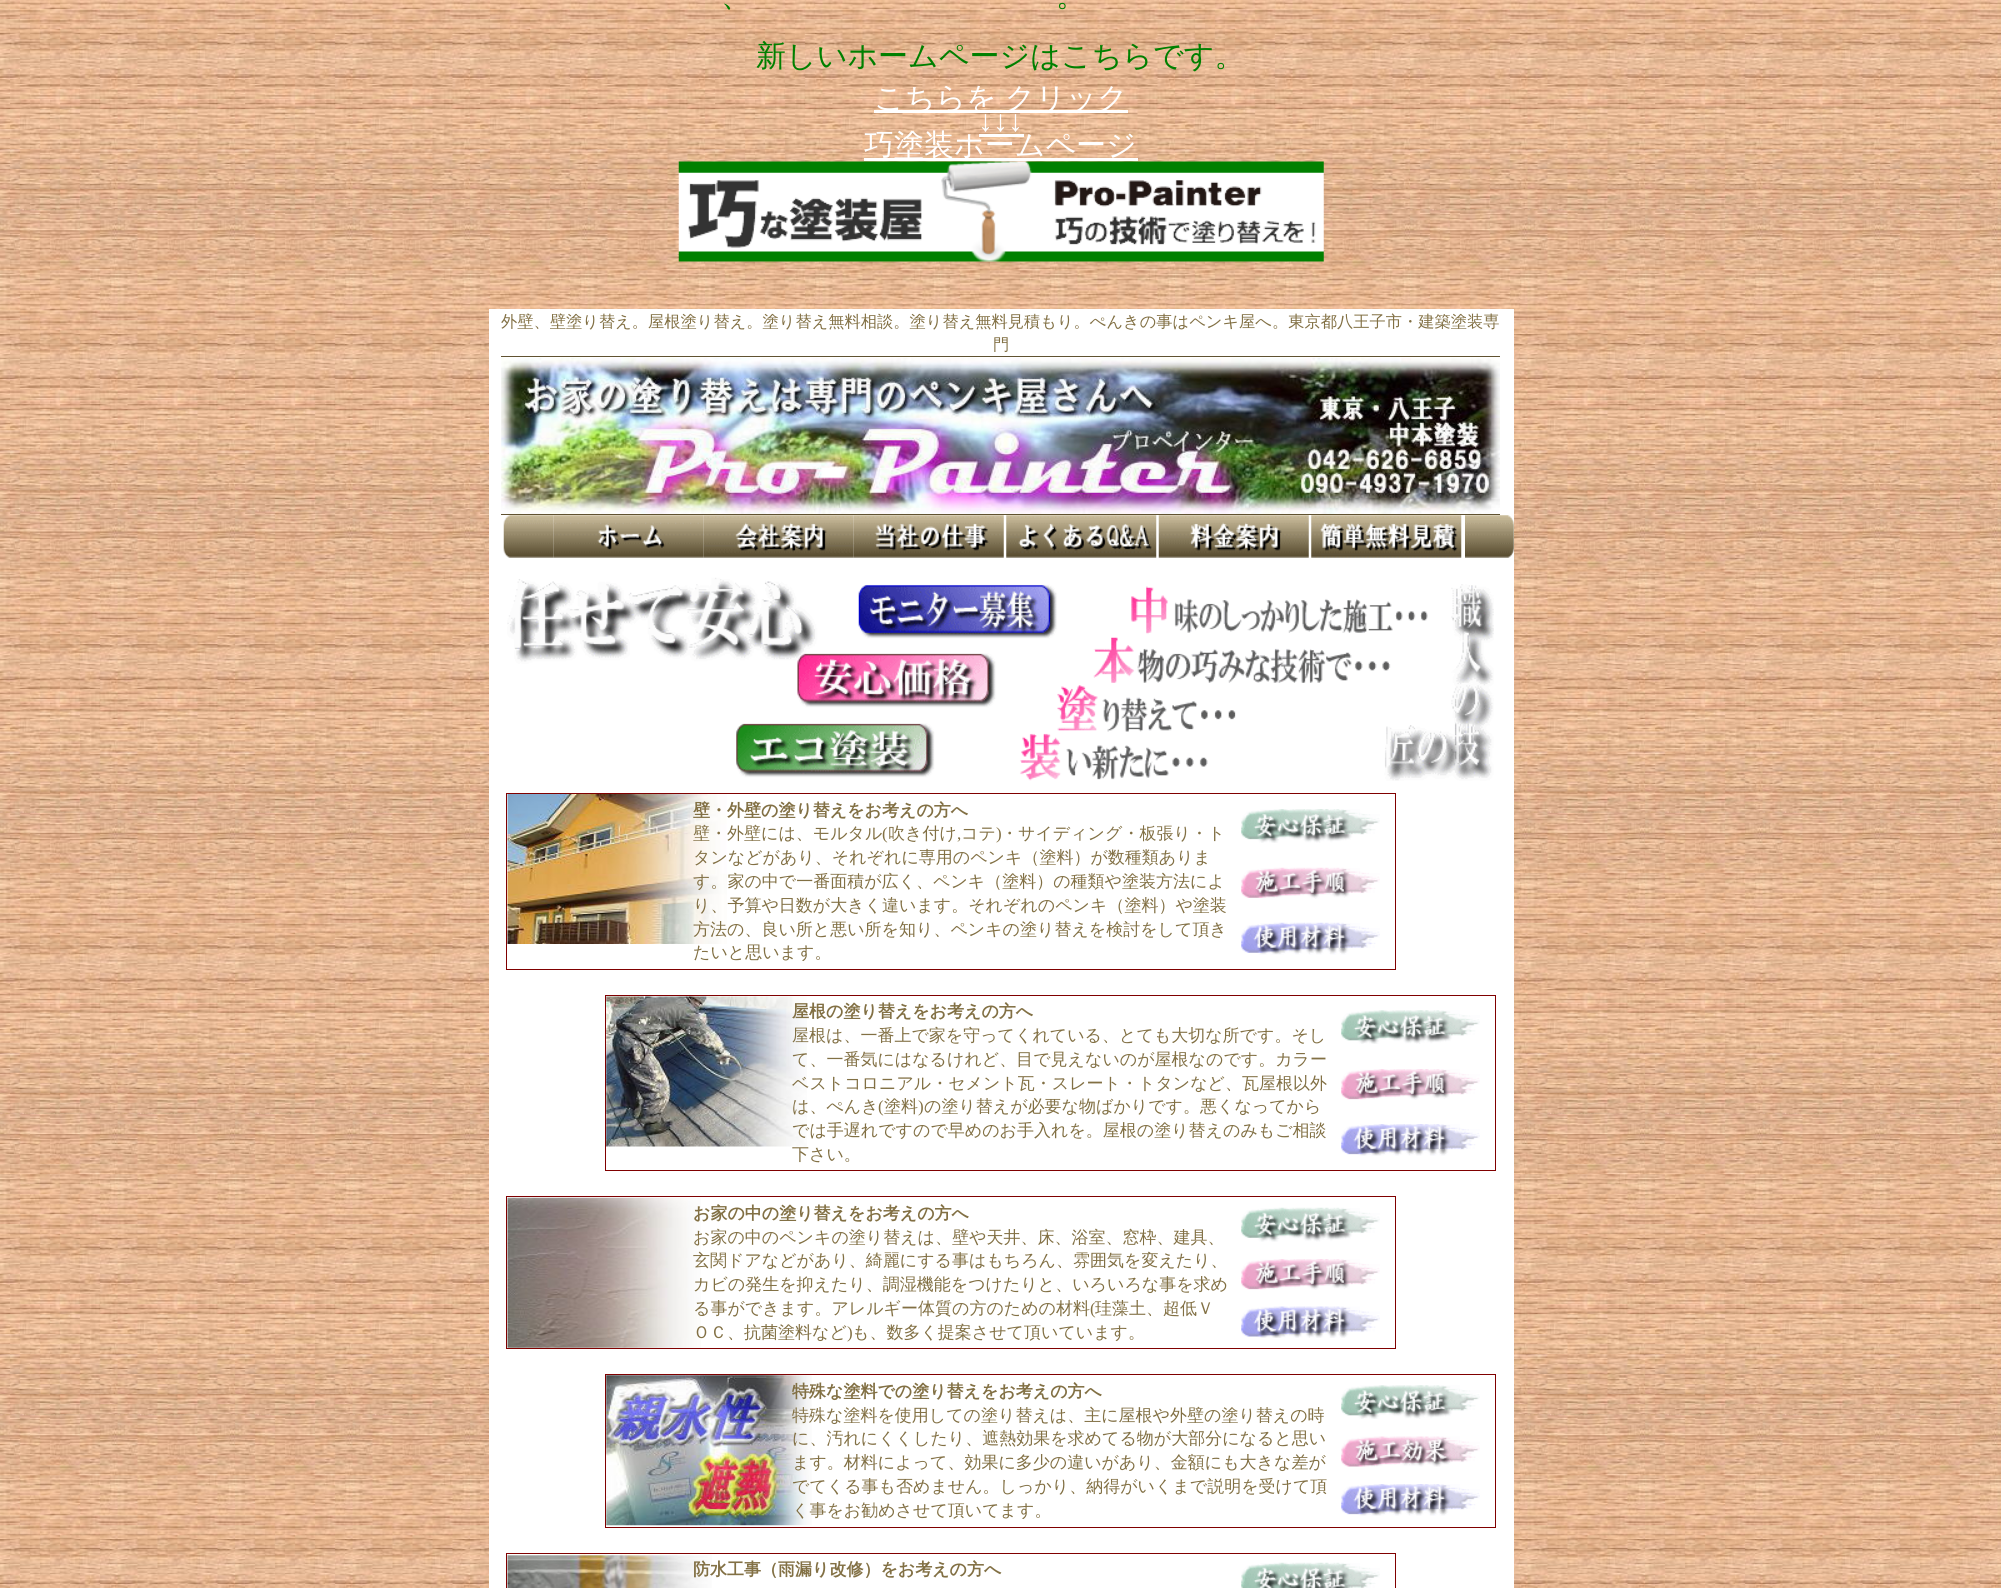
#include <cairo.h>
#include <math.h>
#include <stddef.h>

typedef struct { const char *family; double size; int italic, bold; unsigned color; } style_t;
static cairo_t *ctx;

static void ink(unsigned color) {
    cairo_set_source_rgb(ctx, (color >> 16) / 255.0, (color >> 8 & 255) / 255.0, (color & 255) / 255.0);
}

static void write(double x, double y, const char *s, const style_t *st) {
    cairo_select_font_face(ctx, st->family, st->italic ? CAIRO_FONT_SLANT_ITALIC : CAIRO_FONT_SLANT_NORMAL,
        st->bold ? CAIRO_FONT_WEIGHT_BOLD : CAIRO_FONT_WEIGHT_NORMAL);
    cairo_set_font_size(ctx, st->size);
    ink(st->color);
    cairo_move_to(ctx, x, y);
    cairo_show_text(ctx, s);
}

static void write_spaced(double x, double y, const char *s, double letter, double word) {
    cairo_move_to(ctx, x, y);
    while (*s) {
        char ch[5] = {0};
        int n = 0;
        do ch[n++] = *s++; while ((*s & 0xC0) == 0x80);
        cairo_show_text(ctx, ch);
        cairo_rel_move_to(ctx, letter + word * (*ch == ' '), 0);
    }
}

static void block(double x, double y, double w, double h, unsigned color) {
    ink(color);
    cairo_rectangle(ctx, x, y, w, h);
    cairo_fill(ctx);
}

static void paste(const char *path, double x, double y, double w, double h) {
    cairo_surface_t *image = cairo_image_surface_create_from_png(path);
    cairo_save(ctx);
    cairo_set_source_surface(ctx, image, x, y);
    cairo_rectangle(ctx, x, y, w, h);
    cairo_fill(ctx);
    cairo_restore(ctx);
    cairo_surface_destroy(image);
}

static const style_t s1 = {"WenQuanYi Zen Hei Medium", 30, 0, 0, 0x008000};
static const style_t s2 = {"Liberation Serif", 30, 0, 0, 0xffffff};
static const style_t s3 = {"WenQuanYi Zen Hei Medium", 30, 0, 0, 0xffffff};
static const style_t s4 = {"WenQuanYi Zen Hei Medium", 16.25, 0, 0, 0x827044};
static const style_t s5 = {"WenQuanYi Zen Hei", 17, 0, 1, 0x827044};
static const style_t s6 = {"WenQuanYi Zen Hei Medium", 17, 0, 0, 0x827044};
static const style_t s7 = {"Liberation Serif", 17, 0, 0, 0x827044};

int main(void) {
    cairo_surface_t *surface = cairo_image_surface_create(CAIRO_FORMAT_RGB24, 2001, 1588);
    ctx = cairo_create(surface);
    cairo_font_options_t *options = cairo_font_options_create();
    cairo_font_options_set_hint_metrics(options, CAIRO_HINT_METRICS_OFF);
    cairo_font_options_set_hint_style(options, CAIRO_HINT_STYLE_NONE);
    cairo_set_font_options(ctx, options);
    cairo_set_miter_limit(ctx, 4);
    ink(0xffffff);
    cairo_paint(ctx);
    paste("pic1.png", 0, 0, 2001, 1588);
    cairo_select_font_face(ctx, "WenQuanYi Zen Hei Medium", CAIRO_FONT_SLANT_NORMAL, CAIRO_FONT_WEIGHT_NORMAL);
    cairo_set_font_size(ctx, 30);
    ink(0x008000);
    write_spaced(721, 6, "、", 0, -1);
    write_spaced(1056, 6, "。", 0, -1);
    write(756, 66, "新しいホームページはこちらです。", &s1);
    block(874, 110, 254, 3, 0xffffff);
    write_spaced(874, 108, "こちらを クリック", 0, -1);
    write(978, 131, "↓↓↓", &s2);
    block(979, 134, 45, 3, 0xffffff);
    block(864, 158, 274, 3, 0xffffff);
    write(864, 155, "巧塗装ホームページ", &s3);
    paste("pic2.png", 678, 161, 646, 101);
    block(489, 309, 1025, 1279, 0xffffff);
    write(501, 327, "外壁、壁塗り替え。屋根塗り替え。塗り替え無料相談。塗り替え無料見積もり。ぺんきの事はペンキ屋へ。東京都八王子市・建築塗装専", &s4);
    write(993, 350, "門", &s4);
    block(501, 356, 999, 1, 0x605231);
    block(501, 514, 999, 1, 0x605231);
    paste("pic3.png", 501, 357, 999, 157);
    paste("pic4.png", 503, 515, 51, 43);
    paste("pic5.png", 553, 515, 151, 43);
    paste("pic6.png", 703, 515, 151, 43);
    paste("pic7.png", 853, 515, 151, 43);
    paste("pic8.png", 1006, 515, 151, 43);
    paste("pic9.png", 1158, 515, 151, 43);
    paste("pic10.png", 1311, 515, 151, 43);
    paste("pic11.png", 1465, 515, 49, 43);
    paste("pic12.png", 507, 577, 987, 204);
    paste("pic13.png", 507, 794, 220, 150);
    cairo_rectangle(ctx, 506.5, 793.5, 889, 176);
    ink(0x800000);
    cairo_set_line_width(ctx, 1);
    cairo_stroke(ctx);
    write(693, 816, "壁・外壁の塗り替えをお考えの方へ", &s5);
    write(693, 839, "壁・外壁には、モルタル", &s6);
    write(882, 839, "(", &s7);
    write(888, 839, "吹き付け", &s6);
    write(957, 839, ",", &s7);
    write(961, 839, "コテ", &s6);
    write(996, 839, ")", &s7);
    write(1001, 839, "・サイディング・板張り・ト", &s6);
    write(693, 863, "タンなどがあり、それぞれに専用のペンキ（塗料）が数種類ありま", &s6);
    write(693, 887, "す。家の中で一番面積が広く、ペンキ（塗料）の種類や塗装方法によ", &s6);
    write(693, 911, "り、予算や日数が大きく違います。それぞれのペンキ（塗料）や塗装", &s6);
    write(693, 935, "方法の、良い所と悪い所を知り、ペンキの塗り替えを検討をして頂き", &s6);
    write(693, 958, "たいと思います。", &s6);
    paste("pic14.png", 1241, 809, 139, 34);
    paste("pic15.png", 1241, 867, 139, 32);
    paste("pic16.png", 1241, 922, 139, 33);
    paste("pic17.png", 606, 996, 201, 151);
    cairo_rectangle(ctx, 605.5, 995.5, 890, 175);
    ink(0x800000);
    cairo_stroke(ctx);
    write(792, 1017, "屋根の塗り替えをお考えの方へ", &s5);
    write(792, 1041, "屋根は、一番上で家を守ってくれている、とても大切な所です。そし", &s6);
    write(792, 1065, "て、一番気にはなるけれど、目で見えないのが屋根なのです。カラー", &s6);
    write(792, 1089, "ベストコロニアル・セメント瓦・スレート・トタンなど、瓦屋根以外", &s6);
    write(792, 1112, "は、ぺんき", &s6);
    write(878, 1112, "(", &s7);
    write(884, 1112, "塗料", &s6);
    write(918, 1112, ")", &s7);
    write(924, 1112, "の塗り替えが必要な物ばかりです。悪くなってから", &s6);
    write(792, 1136, "では手遅れですので早めのお手入れを。屋根の塗り替えのみもご相談", &s6);
    write(792, 1160, "下さい。", &s6);
    paste("pic18.png", 1341, 1010, 139, 34);
    paste("pic19.png", 1341, 1069, 139, 31);
    paste("pic20.png", 1341, 1124, 139, 32);
    paste("pic21.png", 507, 1197, 194, 151);
    cairo_rectangle(ctx, 506.5, 1196.5, 889, 152);
    ink(0x800000);
    cairo_stroke(ctx);
    write(693, 1219, "お家の中の塗り替えをお考えの方へ", &s5);
    write(693, 1243, "お家の中のペンキの塗り替えは、壁や天井、床、浴室、窓枠、建具、", &s6);
    write(693, 1266, "玄関ドアなどがあり、綺麗にする事はもちろん、雰囲気を変えたり、", &s6);
    write(693, 1290, "カビの発生を抑えたり、調湿機能をつけたりと、いろいろな事を求め", &s6);
    write(693, 1314, "る事ができます。アレルギー体質の方のための材料", &s6);
    write(1090, 1314, "(", &s7);
    write(1095, 1314, "珪藻土、超低Ｖ", &s6);
    write(693, 1338, "ＯＣ、抗菌塗料など", &s6);
    write(847, 1338, ")", &s7);
    write(852, 1338, "も、数多く提案させて頂いています。", &s6);
    paste("pic22.png", 1241, 1207, 139, 35);
    paste("pic23.png", 1241, 1259, 139, 31);
    paste("pic24.png", 1241, 1306, 139, 32);
    paste("pic25.png", 606, 1375, 206, 151);
    cairo_rectangle(ctx, 605.5, 1374.5, 890, 153);
    ink(0x800000);
    cairo_stroke(ctx);
    write(792, 1397, "特殊な塗料での塗り替えをお考えの方へ", &s5);
    write(792, 1421, "特殊な塗料を使用しての塗り替えは、主に屋根や外壁の塗り替えの時", &s6);
    write(792, 1444, "に、汚れにくくしたり、遮熱効果を求めてる物が大部分になると思い", &s6);
    write(792, 1468, "ます。材料によって、効果に多少の違いがあり、金額にも大きな差が", &s6);
    write(792, 1492, "でてくる事も否めません。しっかり、納得がいくまで説明を受けて頂", &s6);
    write(792, 1516, "く事をお勧めさせて頂いてます。", &s6);
    paste("pic18.png", 1341, 1385, 139, 34);
    paste("pic26.png", 1341, 1436, 139, 31);
    paste("pic20.png", 1341, 1484, 139, 32);
    paste("pic27.png", 507, 1554, 205, 34);
    cairo_rectangle(ctx, 506.5, 1553.5, 889, 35);
    ink(0x800000);
    cairo_stroke(ctx);
    write(693, 1575, "防水工事（雨漏り改修）をお考えの方へ", &s5);
    paste("pic28.png", 1241, 1562, 139, 26);
    cairo_surface_write_to_png(surface, "screenshot.png");
    cairo_font_options_destroy(options);
    cairo_destroy(ctx);
    cairo_surface_destroy(surface);
    return 0;
}
